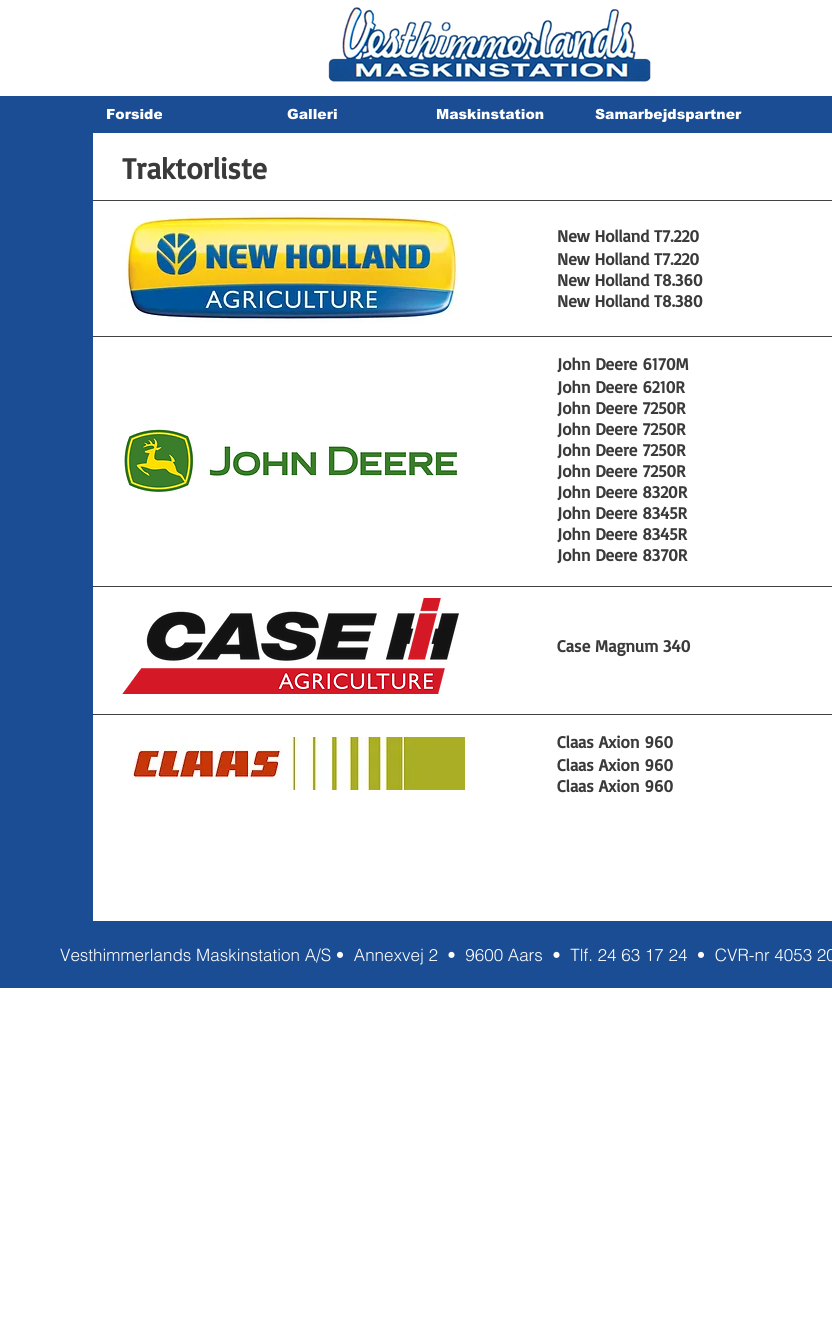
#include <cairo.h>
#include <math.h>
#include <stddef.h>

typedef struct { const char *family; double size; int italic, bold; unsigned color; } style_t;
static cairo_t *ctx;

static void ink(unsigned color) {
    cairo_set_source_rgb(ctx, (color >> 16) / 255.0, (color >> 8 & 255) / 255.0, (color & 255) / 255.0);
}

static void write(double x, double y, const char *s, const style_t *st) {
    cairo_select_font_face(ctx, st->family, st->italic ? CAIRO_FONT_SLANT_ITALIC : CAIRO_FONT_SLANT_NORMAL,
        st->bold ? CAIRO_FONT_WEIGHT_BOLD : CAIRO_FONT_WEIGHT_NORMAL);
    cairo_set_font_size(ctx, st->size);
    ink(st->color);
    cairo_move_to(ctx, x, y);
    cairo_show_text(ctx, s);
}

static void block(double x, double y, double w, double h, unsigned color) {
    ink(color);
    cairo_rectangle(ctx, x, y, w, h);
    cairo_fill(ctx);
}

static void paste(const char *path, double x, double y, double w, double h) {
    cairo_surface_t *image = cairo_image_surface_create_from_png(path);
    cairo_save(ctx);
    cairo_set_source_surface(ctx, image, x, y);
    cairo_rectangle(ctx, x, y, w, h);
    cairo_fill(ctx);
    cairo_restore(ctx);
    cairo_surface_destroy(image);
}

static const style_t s1 = {"arial Black", 14, 0, 0, 0xffffff};
static const style_t s2 = {"Basic", 30, 0, 1, 0x3b3a3a};
static const style_t s3 = {"Basic", 17, 0, 1, 0x3b3a3a};
static const style_t s4 = {"helvetica Light", 17, 0, 0, 0xffffff};

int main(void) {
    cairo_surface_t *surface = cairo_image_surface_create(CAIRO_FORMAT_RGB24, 832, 1336);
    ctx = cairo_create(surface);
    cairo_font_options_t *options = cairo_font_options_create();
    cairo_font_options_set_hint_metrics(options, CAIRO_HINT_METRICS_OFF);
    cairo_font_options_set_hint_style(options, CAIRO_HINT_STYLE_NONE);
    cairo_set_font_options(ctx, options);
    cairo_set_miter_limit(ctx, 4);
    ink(0xffffff);
    cairo_paint(ctx);
    paste("pic1.png", 328, 7, 323, 75);
    block(0, 96, 832, 37, 0x1b4d94);
    write(106, 119, "Forside", &s1);
    write(287, 119, "Galleri", &s1);
    write(436, 119, "Maskinstation", &s1);
    write(595, 119, "Samarbejdspartner", &s1);
    block(0, 133, 93, 788, 0x1b4d94);
    write(122, 179, "Traktorliste", &s2);
    block(93, 200, 739, 1, 0x424242);
    paste("pic2.png", 122, 212, 337, 111);
    write(557, 242, "New Holland T7.220", &s3);
    write(557, 265, "New Holland T7.220", &s3);
    write(557, 286, "New Holland T8.360", &s3);
    write(557, 307, "New Holland T8.380", &s3);
    block(93, 336, 739, 1, 0x424242);
    paste("pic3.png", 124, 429, 333, 63);
    write(557, 370, "John Deere 6170M", &s3);
    write(557, 393, "John Deere 6210R", &s3);
    write(557, 414, "John Deere 7250R", &s3);
    write(557, 435, "John Deere 7250R", &s3);
    write(557, 456, "John Deere 7250R", &s3);
    write(557, 477, "John Deere 7250R", &s3);
    write(557, 498, "John Deere 8320R", &s3);
    write(557, 519, "John Deere 8345R", &s3);
    write(557, 540, "John Deere 8345R", &s3);
    write(557, 561, "John Deere 8370R", &s3);
    block(93, 586, 739, 1, 0x424242);
    paste("pic4.png", 122, 598, 337, 96);
    write(557, 652, "Case Magnum 340", &s3);
    block(93, 714, 739, 1, 0x424242);
    paste("pic5.png", 130, 737, 335, 53);
    write(557, 748, "Claas Axion 960", &s3);
    write(557, 771, "Claas Axion 960", &s3);
    write(557, 792, "Claas Axion 960", &s3);
    block(0, 921, 832, 67, 0x1b4d94);
    write(60, 961, "Vesthimmerlands Maskinstation A/S •  Annexvej 2  •  9600 Aars  •  Tlf. 24 63 17 24  •  CVR-nr 4053 20", &s4);
    cairo_surface_write_to_png(surface, "screenshot.png");
    cairo_font_options_destroy(options);
    cairo_destroy(ctx);
    cairo_surface_destroy(surface);
    return 0;
}
